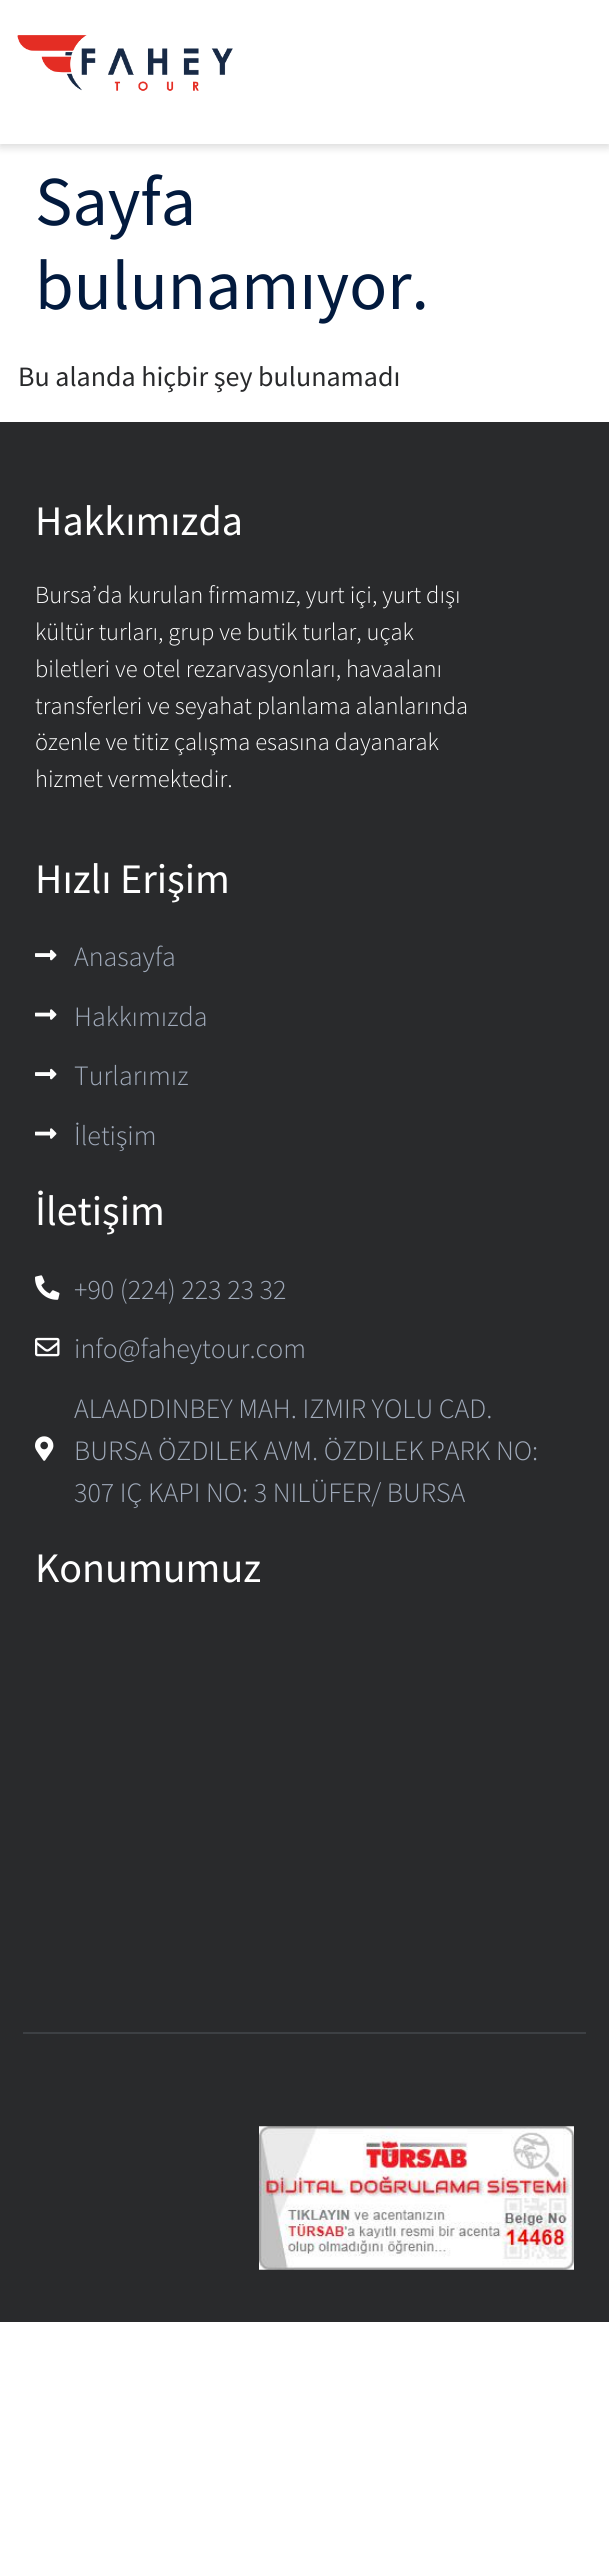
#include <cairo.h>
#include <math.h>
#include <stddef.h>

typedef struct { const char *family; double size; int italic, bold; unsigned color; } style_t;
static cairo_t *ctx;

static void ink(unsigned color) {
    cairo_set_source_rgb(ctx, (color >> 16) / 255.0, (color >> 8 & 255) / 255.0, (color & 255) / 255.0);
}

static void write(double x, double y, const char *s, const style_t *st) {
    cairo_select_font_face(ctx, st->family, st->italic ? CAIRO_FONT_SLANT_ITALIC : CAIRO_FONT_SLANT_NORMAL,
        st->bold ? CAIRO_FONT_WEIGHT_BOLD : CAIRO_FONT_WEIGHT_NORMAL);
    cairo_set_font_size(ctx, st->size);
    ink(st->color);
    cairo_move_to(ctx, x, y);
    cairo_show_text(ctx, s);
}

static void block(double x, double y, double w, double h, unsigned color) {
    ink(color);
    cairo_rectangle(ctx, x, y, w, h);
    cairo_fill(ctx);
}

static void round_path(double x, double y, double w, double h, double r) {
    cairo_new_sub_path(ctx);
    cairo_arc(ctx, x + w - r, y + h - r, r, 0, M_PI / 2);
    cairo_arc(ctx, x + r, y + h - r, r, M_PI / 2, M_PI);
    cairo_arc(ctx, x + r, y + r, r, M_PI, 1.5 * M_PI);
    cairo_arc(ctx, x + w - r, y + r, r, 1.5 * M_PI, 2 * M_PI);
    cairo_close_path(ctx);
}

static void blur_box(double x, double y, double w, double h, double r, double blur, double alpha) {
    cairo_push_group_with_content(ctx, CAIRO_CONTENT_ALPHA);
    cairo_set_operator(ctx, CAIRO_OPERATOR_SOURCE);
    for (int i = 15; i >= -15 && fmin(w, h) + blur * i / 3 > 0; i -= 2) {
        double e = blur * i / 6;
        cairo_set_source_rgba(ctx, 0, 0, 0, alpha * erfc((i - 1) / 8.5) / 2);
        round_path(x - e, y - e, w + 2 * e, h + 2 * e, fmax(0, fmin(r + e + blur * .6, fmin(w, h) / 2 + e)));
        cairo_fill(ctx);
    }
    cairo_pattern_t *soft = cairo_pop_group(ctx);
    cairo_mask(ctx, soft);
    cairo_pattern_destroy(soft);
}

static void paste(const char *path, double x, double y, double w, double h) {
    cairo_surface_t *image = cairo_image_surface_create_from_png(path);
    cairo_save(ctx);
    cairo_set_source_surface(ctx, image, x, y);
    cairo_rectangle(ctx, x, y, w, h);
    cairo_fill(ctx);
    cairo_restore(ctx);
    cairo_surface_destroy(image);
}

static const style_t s1 = {"Source Sans Pro", 70, 0, 0, 0x021a3e};
static const style_t s2 = {"Source Sans Pro", 28, 0, 0, 0x292a2c};
static const style_t s3 = {"Source Sans Pro", 42, 0, 0, 0xffffff};
static const style_t s4 = {"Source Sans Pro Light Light", 24.5, 0, 0, 0xffffff};
static const style_t s5 = {"Source Sans Pro Light Light", 28, 0, 0, 0xa0aaba};

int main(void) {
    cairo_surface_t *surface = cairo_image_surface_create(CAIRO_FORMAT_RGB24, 609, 2552);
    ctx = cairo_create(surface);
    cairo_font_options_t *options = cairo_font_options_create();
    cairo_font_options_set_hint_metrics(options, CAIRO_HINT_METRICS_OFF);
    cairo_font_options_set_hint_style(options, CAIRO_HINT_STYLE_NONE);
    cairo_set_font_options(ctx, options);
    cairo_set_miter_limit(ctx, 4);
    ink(0xffffff);
    cairo_paint(ctx);
    ink(0x000000);
    blur_box(0, 4, 609, 143, 0, 4.5, 0.15);
    block(0, 0, 609, 144, 0xffffff);
    paste("pic1.png", 17, 35, 216, 56);
    write(35, 225, "Sayfa", &s1);
    write(35, 309, "bulunamıyor.", &s1);
    write(18, 386, "Bu alanda hiçbir şey bulunamadı", &s2);
    block(0, 422, 609, 1900, 0x292a2c);
    write(35, 535, "Hakkımızda", &s3);
    write(35, 603, "Bursa’da kurulan firmamız, yurt içi, yurt dışı", &s4);
    write(35, 640, "kültür turları, grup ve butik turlar, uçak", &s4);
    write(35, 677, "biletleri ve otel rezarvasyonları, havaalanı", &s4);
    write(35, 714, "transferleri ve seyahat planlama alanlarında", &s4);
    write(35, 750, "özenle ve titiz çalışma esasına dayanarak", &s4);
    write(35, 787, "hizmet vermektedir.", &s4);
    write(35, 893, "Hızlı Erişim", &s3);
    paste("pic2.png", 35, 949, 22, 12);
    write(74, 966, "Anasayfa", &s5);
    paste("pic3.png", 35, 1009, 22, 11);
    write(74, 1026, "Hakkımızda", &s5);
    paste("pic2.png", 35, 1068, 22, 12);
    write(74, 1085, "Turlarımız", &s5);
    paste("pic3.png", 35, 1128, 22, 11);
    write(74, 1145, "İletişim", &s5);
    write(35, 1225, "İletişim", &s3);
    paste("pic4.png", 35, 1275, 25, 25);
    write(74, 1299, "+90 (224) 223 23 32", &s5);
    paste("pic5.png", 35, 1337, 25, 20);
    write(74, 1358, "info@faheytour.com", &s5);
    paste("pic6.png", 35, 1436, 19, 25);
    write(74, 1418, "ALAADDINBEY MAH. IZMIR YOLU CAD.", &s5);
    write(74, 1460, "BURSA ÖZDILEK AVM. ÖZDILEK PARK NO:", &s5);
    write(74, 1502, "307 IÇ KAPI NO: 3 NILÜFER/ BURSA", &s5);
    write(35, 1582, "Konumumuz", &s3);
    block(23, 2032, 563, 2, 0x3d4044);
    paste("pic7.png", 259, 2126, 315, 144);
    cairo_surface_write_to_png(surface, "screenshot.png");
    cairo_font_options_destroy(options);
    cairo_destroy(ctx);
    cairo_surface_destroy(surface);
    return 0;
}
